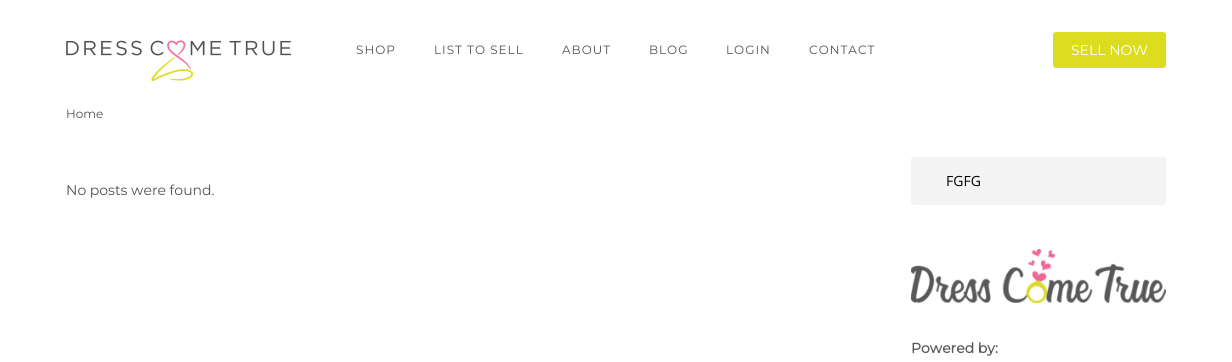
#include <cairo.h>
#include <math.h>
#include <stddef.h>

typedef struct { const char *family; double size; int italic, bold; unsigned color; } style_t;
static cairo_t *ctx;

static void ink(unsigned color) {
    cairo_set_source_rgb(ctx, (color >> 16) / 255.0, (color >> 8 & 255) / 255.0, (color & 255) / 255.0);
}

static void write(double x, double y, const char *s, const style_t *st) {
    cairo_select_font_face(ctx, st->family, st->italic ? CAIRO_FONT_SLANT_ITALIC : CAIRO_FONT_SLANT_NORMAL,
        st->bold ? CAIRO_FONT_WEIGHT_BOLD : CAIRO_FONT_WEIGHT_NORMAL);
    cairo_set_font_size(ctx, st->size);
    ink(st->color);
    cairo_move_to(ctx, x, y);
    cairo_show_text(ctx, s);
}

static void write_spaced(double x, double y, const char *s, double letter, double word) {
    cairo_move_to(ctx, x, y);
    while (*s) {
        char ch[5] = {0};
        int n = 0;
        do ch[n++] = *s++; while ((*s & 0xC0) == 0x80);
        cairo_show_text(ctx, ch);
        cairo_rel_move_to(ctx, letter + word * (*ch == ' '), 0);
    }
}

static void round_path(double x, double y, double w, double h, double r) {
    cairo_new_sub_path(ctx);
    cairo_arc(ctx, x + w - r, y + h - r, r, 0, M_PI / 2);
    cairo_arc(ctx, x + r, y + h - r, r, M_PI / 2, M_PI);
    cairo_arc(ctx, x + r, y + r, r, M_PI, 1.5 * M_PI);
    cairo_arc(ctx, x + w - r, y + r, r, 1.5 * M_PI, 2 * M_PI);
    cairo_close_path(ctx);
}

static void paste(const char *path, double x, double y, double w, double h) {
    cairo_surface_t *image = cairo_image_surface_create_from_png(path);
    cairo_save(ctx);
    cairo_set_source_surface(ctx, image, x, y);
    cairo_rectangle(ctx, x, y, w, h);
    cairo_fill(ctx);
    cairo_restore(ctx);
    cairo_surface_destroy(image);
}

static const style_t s1 = {"Montserrat", 14, 0, 0, 0xffffff};
static const style_t s2 = {"Montserrat", 12, 0, 0, 0x515254};
static const style_t s3 = {"Montserrat", 14, 0, 0, 0x515254};
static const style_t s4 = {"Open Sans", 14, 0, 0, 0x020000};
static const style_t s5 = {"Montserrat", 14, 0, 1, 0x59595c};

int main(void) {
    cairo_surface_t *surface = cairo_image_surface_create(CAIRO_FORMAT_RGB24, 1232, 362);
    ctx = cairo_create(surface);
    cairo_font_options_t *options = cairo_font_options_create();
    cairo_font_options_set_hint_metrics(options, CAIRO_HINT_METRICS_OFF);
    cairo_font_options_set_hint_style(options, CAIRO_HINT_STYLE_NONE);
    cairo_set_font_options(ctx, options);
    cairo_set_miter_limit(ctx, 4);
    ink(0xffffff);
    cairo_paint(ctx);
    paste("pic1.png", 66, 40, 225, 41);
    cairo_select_font_face(ctx, "Montserrat", CAIRO_FONT_SLANT_NORMAL, CAIRO_FONT_WEIGHT_NORMAL);
    cairo_set_font_size(ctx, 12);
    ink(0x515254);
    write_spaced(356, 54, "SHOP", 1, 0);
    write_spaced(434, 54, "LIST TO SELL", 1, 0);
    write_spaced(562, 54, "ABOUT", 1, 0);
    write_spaced(649, 54, "BLOG", 1, 0);
    write_spaced(726, 54, "LOGIN", 1, 0);
    write_spaced(809, 54, "CONTACT", 1, 0);
    ink(0xdddd1f);
    round_path(1053, 32, 113, 36, 3);
    cairo_fill(ctx);
    write(1071, 55, "SELL NOW", &s1);
    write(66, 118, "Home", &s2);
    write(66, 195, "No posts were found.", &s3);
    ink(0xf4f4f4);
    round_path(911, 157, 255, 48, 2);
    cairo_fill(ctx);
    write(946, 186, "FGFG", &s4);
    paste("pic2.png", 911, 249, 255, 54);
    write(911, 353, "Powered by:", &s5);
    cairo_surface_write_to_png(surface, "screenshot.png");
    cairo_font_options_destroy(options);
    cairo_destroy(ctx);
    cairo_surface_destroy(surface);
    return 0;
}
